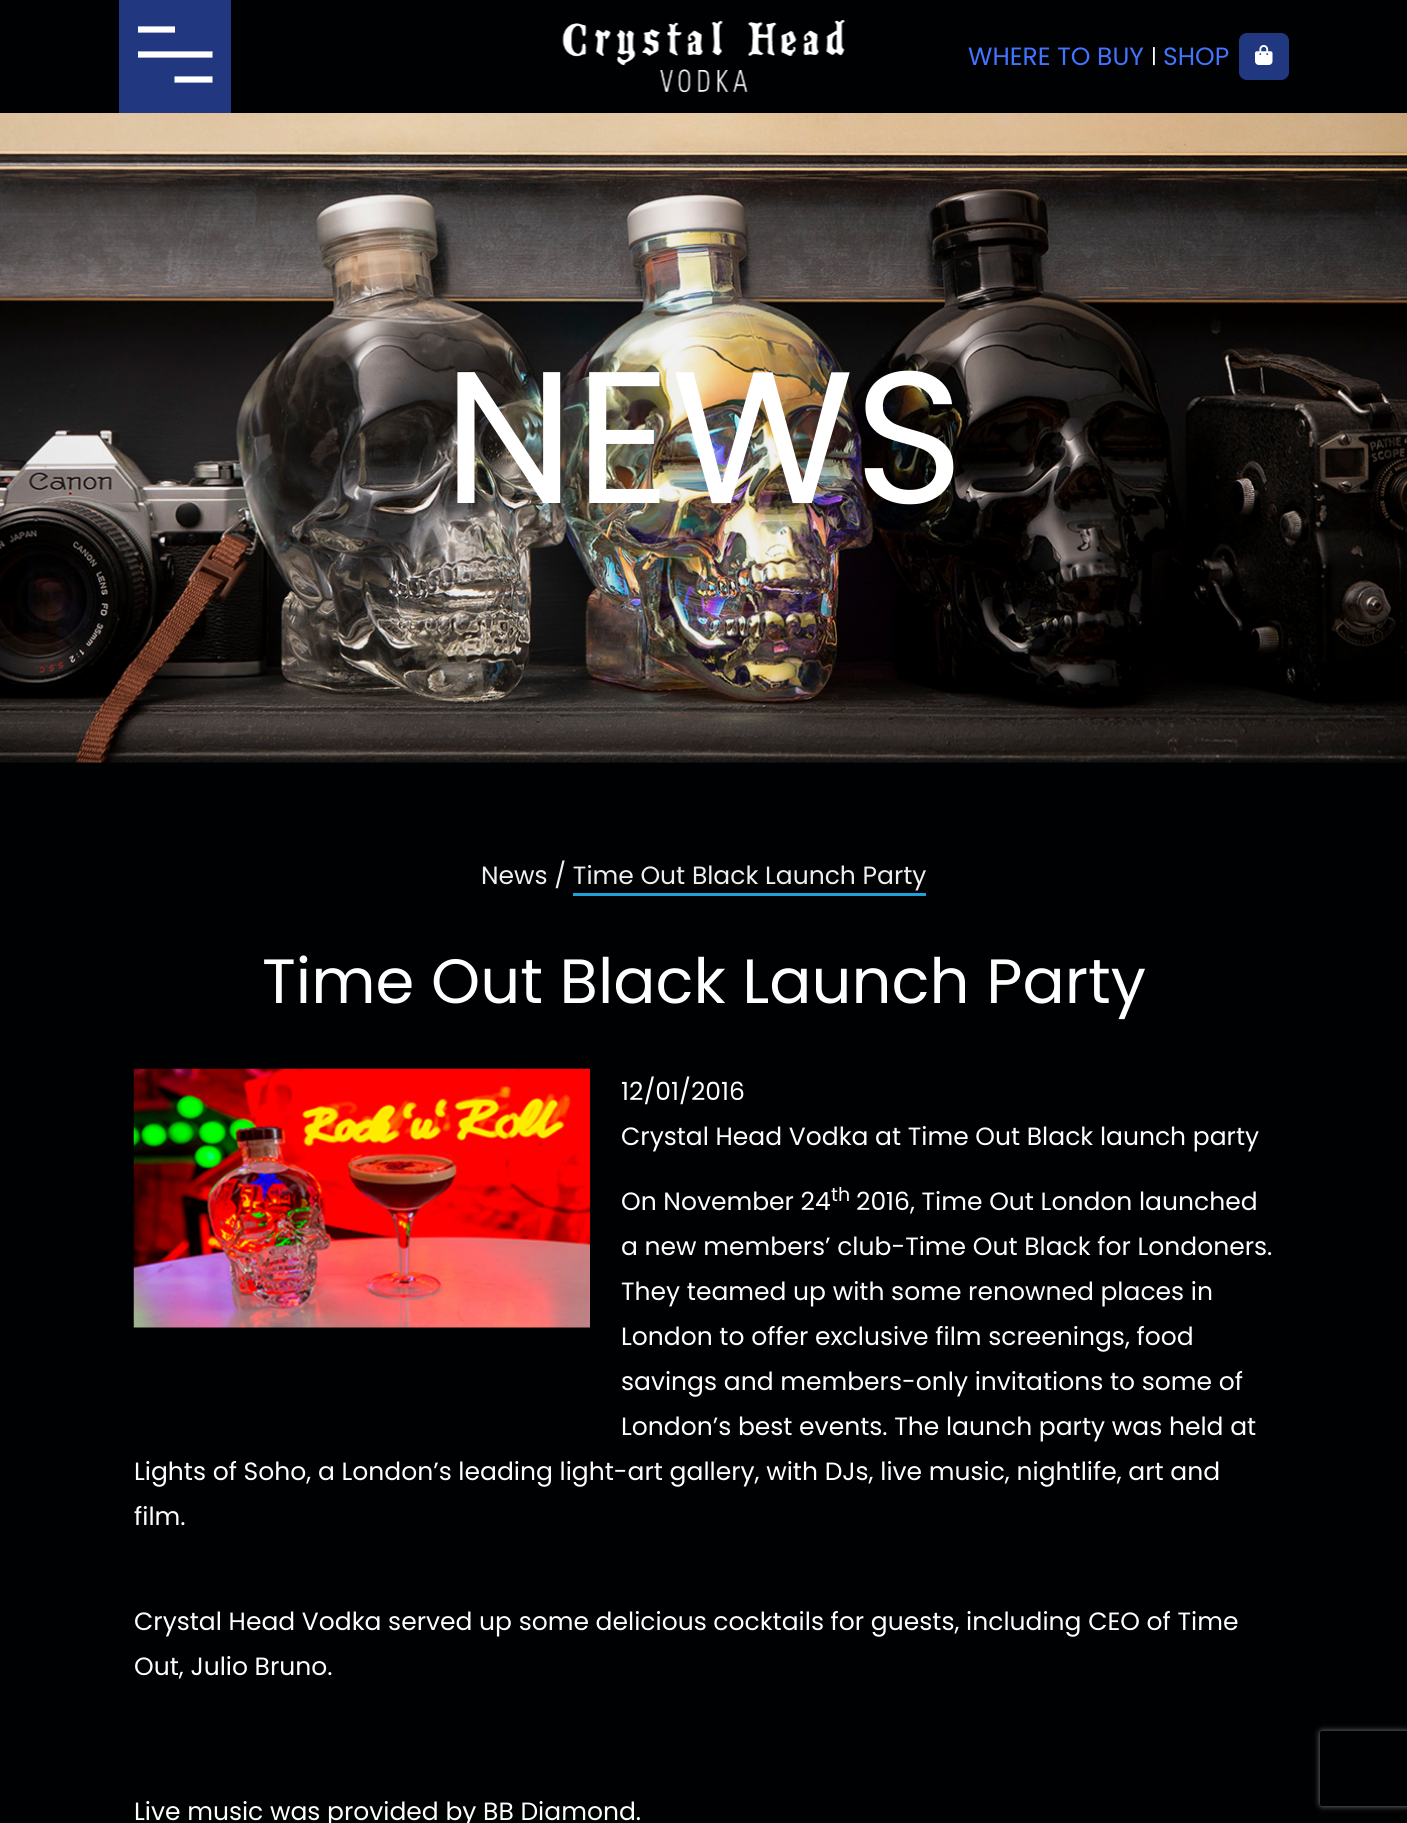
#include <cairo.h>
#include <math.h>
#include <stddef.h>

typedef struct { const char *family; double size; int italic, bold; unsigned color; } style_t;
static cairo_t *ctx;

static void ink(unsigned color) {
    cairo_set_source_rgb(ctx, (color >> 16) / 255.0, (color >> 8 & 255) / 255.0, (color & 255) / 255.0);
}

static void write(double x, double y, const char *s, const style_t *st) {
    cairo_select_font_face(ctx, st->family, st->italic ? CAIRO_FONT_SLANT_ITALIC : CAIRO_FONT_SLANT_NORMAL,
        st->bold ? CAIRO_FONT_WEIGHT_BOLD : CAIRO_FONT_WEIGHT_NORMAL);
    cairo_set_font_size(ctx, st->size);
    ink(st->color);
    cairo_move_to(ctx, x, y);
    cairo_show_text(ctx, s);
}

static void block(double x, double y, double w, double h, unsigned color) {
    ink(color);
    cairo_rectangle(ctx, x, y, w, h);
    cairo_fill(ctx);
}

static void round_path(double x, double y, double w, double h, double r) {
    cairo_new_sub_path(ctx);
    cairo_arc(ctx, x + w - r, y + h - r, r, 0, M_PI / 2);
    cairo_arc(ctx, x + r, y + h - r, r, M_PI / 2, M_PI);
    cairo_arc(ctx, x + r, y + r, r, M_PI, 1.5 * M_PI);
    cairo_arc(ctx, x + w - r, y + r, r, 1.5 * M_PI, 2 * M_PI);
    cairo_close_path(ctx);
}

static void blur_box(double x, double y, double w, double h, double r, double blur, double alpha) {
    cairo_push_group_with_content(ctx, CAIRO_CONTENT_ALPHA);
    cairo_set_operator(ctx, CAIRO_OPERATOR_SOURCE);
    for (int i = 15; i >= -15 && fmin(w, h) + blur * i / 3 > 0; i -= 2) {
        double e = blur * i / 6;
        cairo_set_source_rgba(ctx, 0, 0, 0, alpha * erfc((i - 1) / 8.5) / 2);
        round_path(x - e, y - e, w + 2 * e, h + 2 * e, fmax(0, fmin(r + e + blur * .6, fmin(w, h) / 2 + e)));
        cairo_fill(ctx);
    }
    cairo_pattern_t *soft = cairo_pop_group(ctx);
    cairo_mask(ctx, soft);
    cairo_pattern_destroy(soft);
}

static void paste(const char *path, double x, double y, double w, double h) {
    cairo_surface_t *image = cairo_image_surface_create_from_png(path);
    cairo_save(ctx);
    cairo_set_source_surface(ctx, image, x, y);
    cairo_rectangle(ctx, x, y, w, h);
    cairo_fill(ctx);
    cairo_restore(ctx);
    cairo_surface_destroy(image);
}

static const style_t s1 = {"Poppins", 25, 0, 0, 0x4473ff};
static const style_t s2 = {"Poppins", 20, 0, 0, 0xffffff};
static const style_t s3 = {"Poppins", 187.5, 0, 0, 0xffffff};
static const style_t s4 = {"Poppins", 25, 0, 0, 0xefefef};
static const style_t s5 = {"Poppins", 62.5, 0, 0, 0xffffff};
static const style_t s6 = {"Poppins", 25, 0, 0, 0xffffff};
static const style_t s7 = {"Poppins", 19, 0, 0, 0xffffff};

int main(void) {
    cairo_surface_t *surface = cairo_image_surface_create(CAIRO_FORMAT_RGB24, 1407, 1823);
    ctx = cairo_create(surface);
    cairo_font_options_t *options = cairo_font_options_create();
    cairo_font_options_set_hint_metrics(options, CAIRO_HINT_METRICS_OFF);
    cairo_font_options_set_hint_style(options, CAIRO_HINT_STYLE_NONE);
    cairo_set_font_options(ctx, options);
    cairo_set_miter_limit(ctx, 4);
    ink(0x000103);
    cairo_paint(ctx);
    paste("pic1.png", 562, 20, 283, 73);
    block(119, 0, 112, 113, 0x213880);
    cairo_save(ctx);
    cairo_rectangle(ctx, 138, 26, 75, 57);
    cairo_clip(ctx);
    cairo_new_path(ctx);
    cairo_move_to(ctx, 137.5, 29.5);
    cairo_line_to(ctx, 175, 29.5);
    ink(0xffffff);
    cairo_set_line_width(ctx, 6.2);
    cairo_stroke(ctx);
    cairo_new_path(ctx);
    cairo_move_to(ctx, 137.5, 54.5);
    cairo_line_to(ctx, 212.5, 54.5);
    cairo_stroke(ctx);
    cairo_restore(ctx);
    cairo_new_path(ctx);
    cairo_move_to(ctx, 174.5, 79.5);
    cairo_line_to(ctx, 212.5, 79.5);
    ink(0xffffff);
    cairo_set_line_width(ctx, 6.2);
    cairo_stroke(ctx);
    write(968, 65, "WHERE TO BUY", &s1);
    write(1151, 63, "|", &s2);
    write(1163, 65, "SHOP", &s1);
    ink(0x213880);
    round_path(1239.5, 33.5, 49, 46, 7.5);
    cairo_fill_preserve(ctx);
    cairo_set_line_width(ctx, 1);
    cairo_stroke(ctx);
    paste("pic2.png", 1255, 45, 18, 20);
    paste("pic3.png", 0, 113, 1407, 650);
    write(443, 503, "NEWS", &s3);
    write(481, 884, "News / Time Out Black Launch Party", &s4);
    block(573, 893, 353, 3, 0x20a1da);
    write(262, 1003, "Time Out Black Launch Party", &s5);
    paste("pic4.png", 133, 1068, 457, 260);
    write(621, 1100, "12/01/2016", &s6);
    write(621, 1145, "Crystal Head Vodka at Time Out Black launch party", &s6);
    write(621, 1210, "On November 24", &s6);
    write(831, 1201, "th", &s7);
    write(856, 1210, "2016, Time Out London launched", &s6);
    write(621, 1255, "a new members’ club-Time Out Black for Londoners.", &s6);
    write(621, 1300, "They teamed up with some renowned places in", &s6);
    write(621, 1345, "London to offer exclusive film screenings, food", &s6);
    write(621, 1390, "savings and members-only invitations to some of", &s6);
    write(621, 1435, "London’s best events. The launch party was held at", &s6);
    write(134, 1480, "Lights of Soho, a London’s leading light-art gallery, with DJs, live music, nightlife, art and", &s6);
    write(134, 1525, "film.", &s6);
    write(134, 1630, "Crystal Head Vodka served up some delicious cocktails for guests, including CEO of Time", &s6);
    write(134, 1675, "Out, Julio Bruno.", &s6);
    write(134, 1820, "Live music was provided by BB Diamond.", &s6);
    cairo_save(ctx);
    cairo_set_fill_rule(ctx, CAIRO_FILL_RULE_EVEN_ODD);
    cairo_new_path(ctx);
    cairo_move_to(ctx, 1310, 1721);
    cairo_line_to(ctx, 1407, 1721);
    cairo_line_to(ctx, 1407, 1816);
    cairo_line_to(ctx, 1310, 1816);
    cairo_close_path(ctx);
    cairo_move_to(ctx, 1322.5, 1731);
    cairo_line_to(ctx, 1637.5, 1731);
    cairo_curve_to(ctx, 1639, 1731, 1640, 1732, 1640, 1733.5);
    cairo_line_to(ctx, 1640, 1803.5);
    cairo_curve_to(ctx, 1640, 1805, 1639, 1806, 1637.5, 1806);
    cairo_line_to(ctx, 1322.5, 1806);
    cairo_curve_to(ctx, 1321, 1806, 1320, 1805, 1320, 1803.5);
    cairo_line_to(ctx, 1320, 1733.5);
    cairo_curve_to(ctx, 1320, 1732, 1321, 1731, 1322.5, 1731);
    cairo_close_path(ctx);
    cairo_clip(ctx);
    ink(0x808080);
    blur_box(1320, 1731, 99, 75, 2.5, 3, 1);
    cairo_restore(ctx);
    cairo_surface_write_to_png(surface, "screenshot.png");
    cairo_font_options_destroy(options);
    cairo_destroy(ctx);
    cairo_surface_destroy(surface);
    return 0;
}
